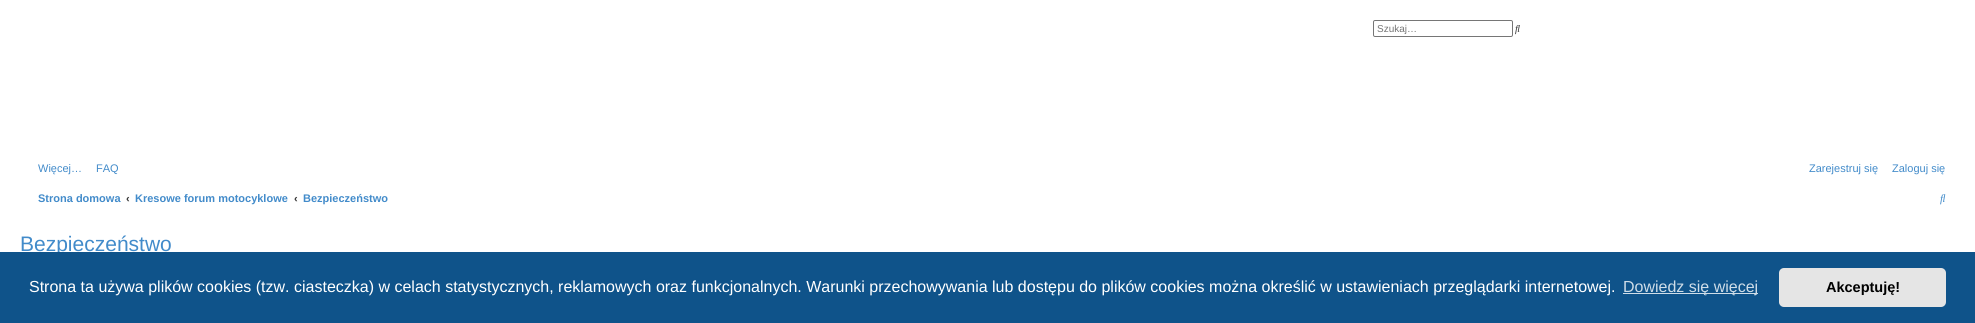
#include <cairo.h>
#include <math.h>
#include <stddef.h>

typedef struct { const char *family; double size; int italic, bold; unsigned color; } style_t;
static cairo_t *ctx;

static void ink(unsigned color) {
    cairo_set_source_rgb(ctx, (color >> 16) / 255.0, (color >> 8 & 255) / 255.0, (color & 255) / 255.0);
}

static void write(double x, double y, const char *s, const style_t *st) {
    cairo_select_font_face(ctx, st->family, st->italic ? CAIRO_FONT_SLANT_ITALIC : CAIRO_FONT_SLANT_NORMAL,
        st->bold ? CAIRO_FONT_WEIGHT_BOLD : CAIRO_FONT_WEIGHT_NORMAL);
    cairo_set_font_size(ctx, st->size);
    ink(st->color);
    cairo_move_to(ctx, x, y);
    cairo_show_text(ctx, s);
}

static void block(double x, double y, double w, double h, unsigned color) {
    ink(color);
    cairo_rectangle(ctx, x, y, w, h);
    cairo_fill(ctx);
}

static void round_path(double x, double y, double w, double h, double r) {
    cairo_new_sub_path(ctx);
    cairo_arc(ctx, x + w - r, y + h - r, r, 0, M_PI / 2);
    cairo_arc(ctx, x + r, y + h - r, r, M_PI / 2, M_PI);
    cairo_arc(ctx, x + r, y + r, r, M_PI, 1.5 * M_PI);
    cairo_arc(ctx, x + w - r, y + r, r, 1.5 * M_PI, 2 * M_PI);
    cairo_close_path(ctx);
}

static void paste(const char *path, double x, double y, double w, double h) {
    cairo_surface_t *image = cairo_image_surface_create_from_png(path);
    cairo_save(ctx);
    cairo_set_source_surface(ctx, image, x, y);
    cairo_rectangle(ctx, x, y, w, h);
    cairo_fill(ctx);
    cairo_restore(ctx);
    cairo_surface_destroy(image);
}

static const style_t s1 = {"Liberation Sans", 10, 0, 0, 0x757575};
static const style_t s2 = {"Liberation Sans", 11, 0, 0, 0x428bca};
static const style_t s3 = {"Liberation Sans", 11, 0, 1, 0x428bca};
static const style_t s4 = {"Liberation Sans", 11, 0, 1, 0x333333};
static const style_t s5 = {"Liberation Sans", 21, 0, 0, 0x428bca};
static const style_t s6 = {"Liberation Sans", 16, 0, 0, 0xffffff};
static const style_t s7 = {"Liberation Sans", 16, 0, 0, 0xcfdde8};
static const style_t s8 = {"Liberation Sans", 14.5, 0, 1, 0x000000};

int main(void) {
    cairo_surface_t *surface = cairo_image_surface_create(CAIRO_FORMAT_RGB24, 1975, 323);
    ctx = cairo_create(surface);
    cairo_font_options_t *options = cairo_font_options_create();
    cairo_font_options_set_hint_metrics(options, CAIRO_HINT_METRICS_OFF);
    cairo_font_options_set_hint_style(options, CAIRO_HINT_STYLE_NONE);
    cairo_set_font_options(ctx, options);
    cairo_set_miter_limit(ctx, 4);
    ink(0xffffff);
    cairo_paint(ctx);
    round_path(1373.5, 20.5, 139, 16, 1.5);
    ink(0x767676);
    cairo_set_line_width(ctx, 1);
    cairo_stroke(ctx);
    write(1377, 32, "Szukaj…", &s1);
    paste("pic1.png", 1515, 25, 5, 10);
    write(38, 172, "Więcej…", &s2);
    write(96, 172, "FAQ", &s2);
    write(1809, 172, "Zarejestruj się", &s2);
    write(1892, 172, "Zaloguj się", &s2);
    write(38, 202, "Strona domowa", &s3);
    write(126, 202, "‹", &s4);
    write(135, 202, "Kresowe forum motocyklowe", &s3);
    write(294, 202, "‹", &s4);
    write(303, 202, "Bezpieczeństwo", &s3);
    paste("pic2.png", 1940, 194, 6, 11);
    write(20, 251, "Bezpieczeństwo", &s5);
    block(0, 252, 1975, 71, 0x0f538a);
    write(29, 292, "Strona ta używa plików cookies (tzw. ciasteczka) w celach statystycznych, reklamowych oraz funkcjonalnych. Warunki przechowywania lub dostępu do plików cookies można określić w ustawieniach przeglądarki internetowej.", &s6);
    block(1623, 293, 135, 1, 0xcfdde8);
    write(1623, 292, "Dowiedz się więcej", &s7);
    ink(0xe5e5e5);
    round_path(1779, 268, 167, 39, 5);
    cairo_fill(ctx);
    write(1826, 292, "Akceptuję!", &s8);
    cairo_surface_write_to_png(surface, "screenshot.png");
    cairo_font_options_destroy(options);
    cairo_destroy(ctx);
    cairo_surface_destroy(surface);
    return 0;
}
